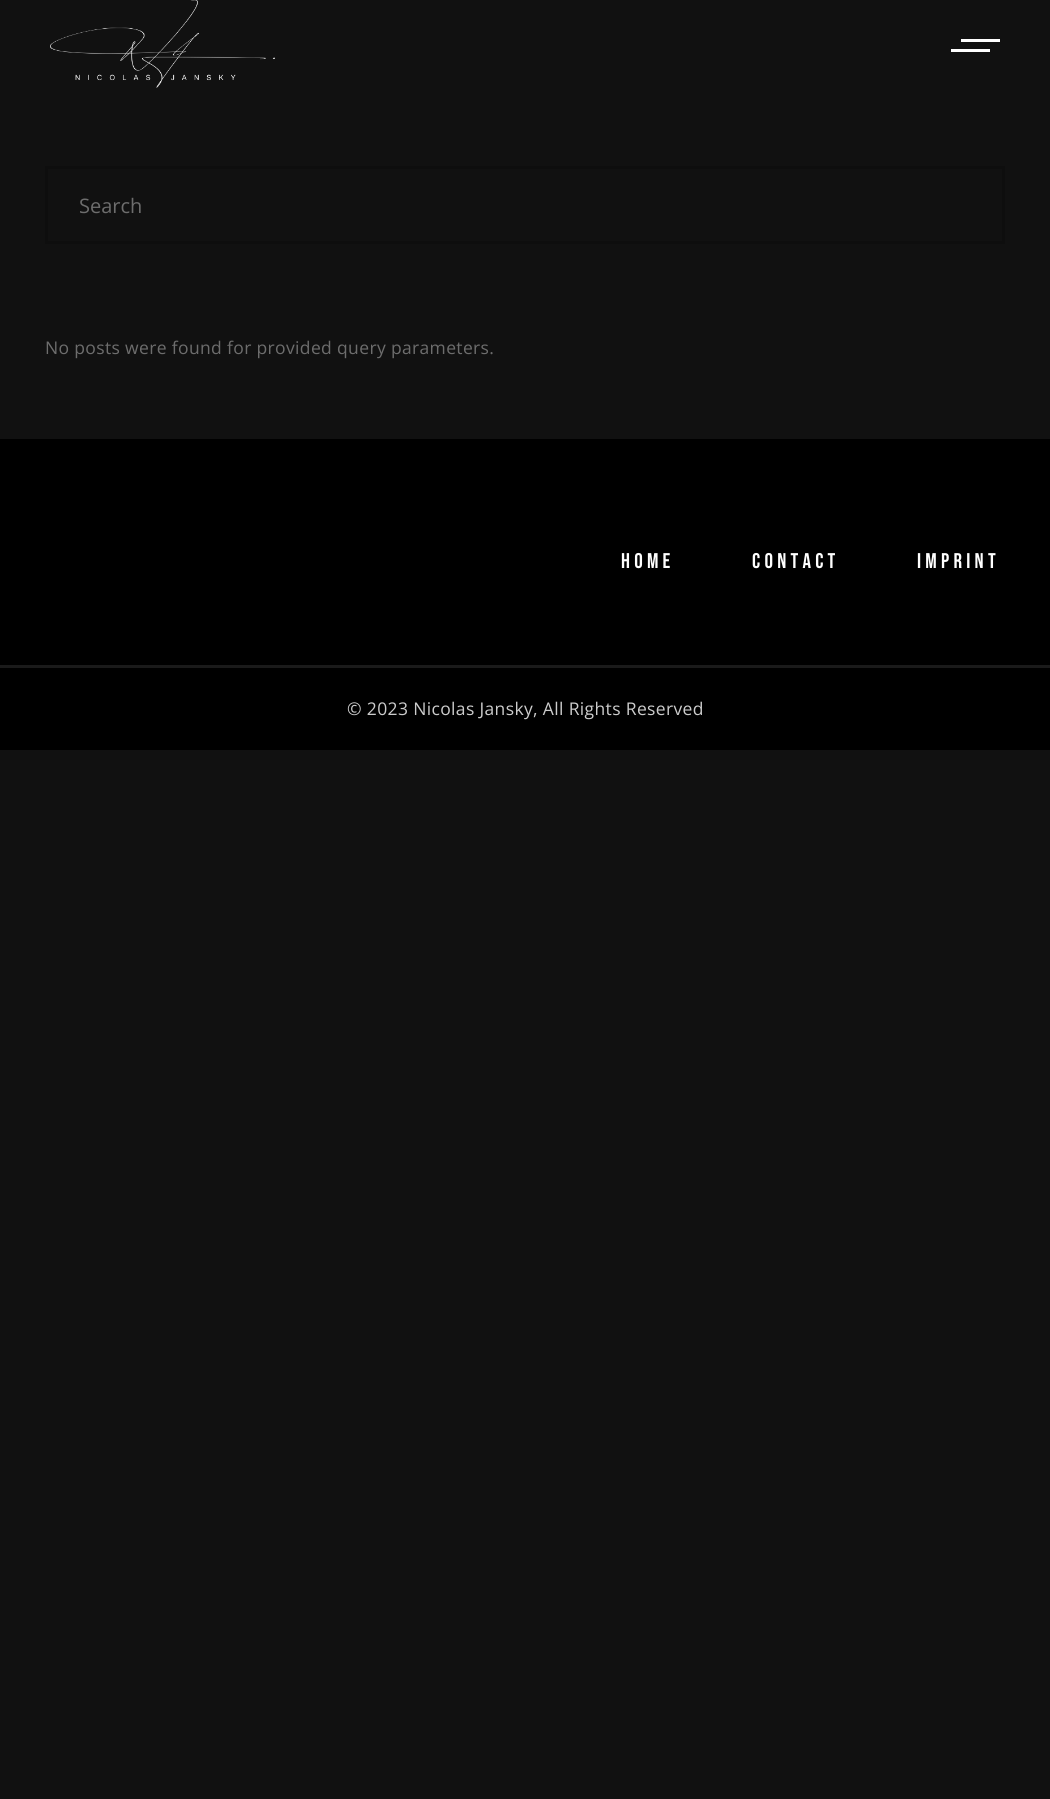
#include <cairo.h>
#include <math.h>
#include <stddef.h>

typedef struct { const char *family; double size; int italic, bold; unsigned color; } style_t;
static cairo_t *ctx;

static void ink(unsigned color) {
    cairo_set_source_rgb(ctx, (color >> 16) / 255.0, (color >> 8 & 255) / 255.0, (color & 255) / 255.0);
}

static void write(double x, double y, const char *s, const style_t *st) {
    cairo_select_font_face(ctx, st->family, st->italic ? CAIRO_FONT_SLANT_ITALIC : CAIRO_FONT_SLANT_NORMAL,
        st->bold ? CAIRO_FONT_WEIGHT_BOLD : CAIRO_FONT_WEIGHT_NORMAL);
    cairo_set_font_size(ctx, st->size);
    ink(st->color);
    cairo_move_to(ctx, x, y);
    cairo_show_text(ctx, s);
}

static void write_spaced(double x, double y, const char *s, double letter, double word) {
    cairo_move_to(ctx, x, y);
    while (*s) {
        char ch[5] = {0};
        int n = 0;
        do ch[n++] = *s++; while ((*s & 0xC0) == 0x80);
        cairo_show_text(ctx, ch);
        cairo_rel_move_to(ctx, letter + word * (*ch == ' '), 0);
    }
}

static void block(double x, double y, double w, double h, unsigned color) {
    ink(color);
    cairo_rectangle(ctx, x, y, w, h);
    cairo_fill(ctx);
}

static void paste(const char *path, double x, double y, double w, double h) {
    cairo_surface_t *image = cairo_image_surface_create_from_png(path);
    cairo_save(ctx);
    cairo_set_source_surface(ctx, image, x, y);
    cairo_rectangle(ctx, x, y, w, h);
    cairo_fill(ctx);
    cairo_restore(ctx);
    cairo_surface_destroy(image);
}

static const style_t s1 = {"Open Sans", 20, 0, 0, 0x6d6d6d};

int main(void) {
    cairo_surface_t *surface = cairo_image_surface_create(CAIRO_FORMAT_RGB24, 1050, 1799);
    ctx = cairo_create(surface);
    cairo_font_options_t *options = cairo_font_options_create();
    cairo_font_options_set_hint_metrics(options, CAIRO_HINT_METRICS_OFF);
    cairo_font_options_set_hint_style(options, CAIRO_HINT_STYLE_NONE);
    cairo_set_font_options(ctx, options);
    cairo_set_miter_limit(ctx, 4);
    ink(0x111111);
    cairo_paint(ctx);
    paste("pic1.png", 50, 0, 225, 88);
    ink(0xffffff);
    cairo_set_fill_rule(ctx, CAIRO_FILL_RULE_EVEN_ODD);
    cairo_new_path(ctx);
    cairo_move_to(ctx, 961, 42);
    cairo_line_to(ctx, 961, 39);
    cairo_line_to(ctx, 1000, 39);
    cairo_line_to(ctx, 1000, 42);
    cairo_close_path(ctx);
    cairo_move_to(ctx, 990, 52);
    cairo_line_to(ctx, 951, 52);
    cairo_line_to(ctx, 951, 49);
    cairo_line_to(ctx, 990, 49);
    cairo_close_path(ctx);
    cairo_fill(ctx);
    cairo_rectangle(ctx, 46.5, 167.5, 957, 75);
    ink(0x0e0e0e);
    cairo_set_line_width(ctx, 3);
    cairo_stroke(ctx);
    write(79, 213, "Search", &s1);
    cairo_set_font_size(ctx, 17.5);
    write_spaced(45, 354, "No posts were found for provided query parameters.", 0.35, 0);
    block(0, 439, 1050, 226, 0x000000);
    cairo_select_font_face(ctx, "Bebas Neue", CAIRO_FONT_SLANT_NORMAL, CAIRO_FONT_WEIGHT_NORMAL);
    cairo_set_font_size(ctx, 21.25);
    ink(0xffffff);
    write_spaced(621, 568, "HOME", 4.25, 0);
    write_spaced(752, 568, "CONTACT", 4.25, 0);
    write_spaced(917, 568, "IMPRINT", 4.25, 0);
    block(0, 668, 1050, 82, 0x000000);
    block(0, 665, 1050, 3, 0x1a1a1a);
    cairo_select_font_face(ctx, "Open Sans", CAIRO_FONT_SLANT_NORMAL, CAIRO_FONT_WEIGHT_NORMAL);
    cairo_set_font_size(ctx, 17.5);
    ink(0xcccccc);
    write_spaced(347, 715, "© 2023 Nicolas Jansky, All Rights Reserved", 0.35, 0);
    cairo_surface_write_to_png(surface, "screenshot.png");
    cairo_font_options_destroy(options);
    cairo_destroy(ctx);
    cairo_surface_destroy(surface);
    return 0;
}
